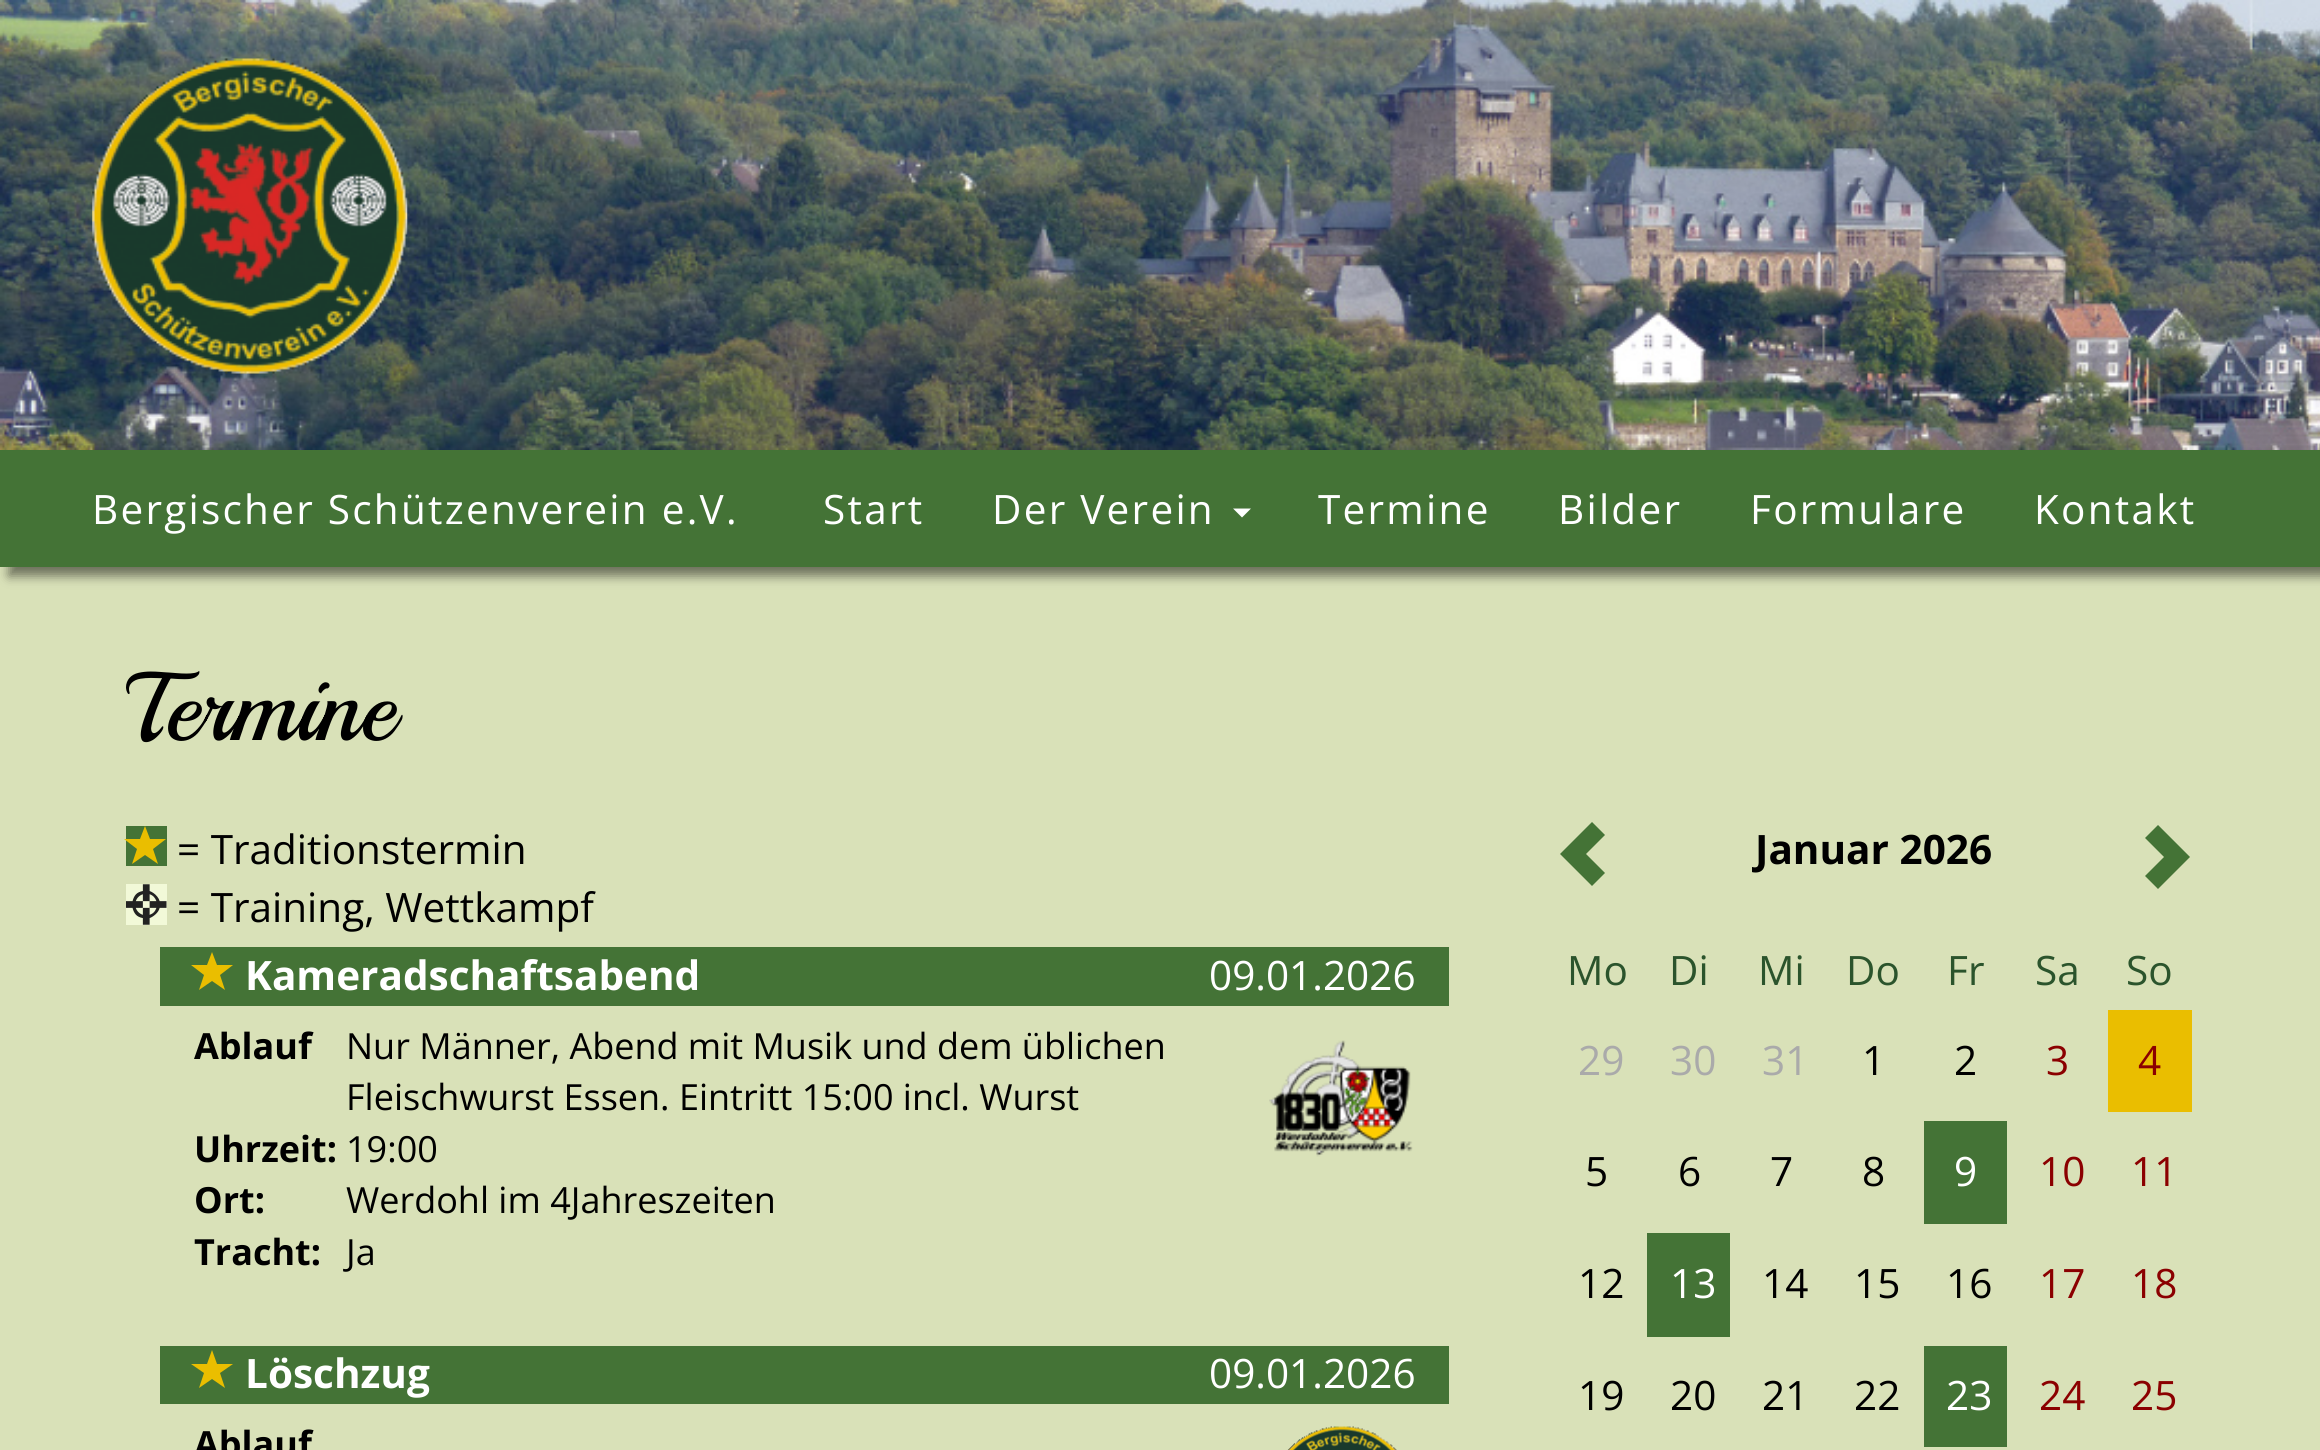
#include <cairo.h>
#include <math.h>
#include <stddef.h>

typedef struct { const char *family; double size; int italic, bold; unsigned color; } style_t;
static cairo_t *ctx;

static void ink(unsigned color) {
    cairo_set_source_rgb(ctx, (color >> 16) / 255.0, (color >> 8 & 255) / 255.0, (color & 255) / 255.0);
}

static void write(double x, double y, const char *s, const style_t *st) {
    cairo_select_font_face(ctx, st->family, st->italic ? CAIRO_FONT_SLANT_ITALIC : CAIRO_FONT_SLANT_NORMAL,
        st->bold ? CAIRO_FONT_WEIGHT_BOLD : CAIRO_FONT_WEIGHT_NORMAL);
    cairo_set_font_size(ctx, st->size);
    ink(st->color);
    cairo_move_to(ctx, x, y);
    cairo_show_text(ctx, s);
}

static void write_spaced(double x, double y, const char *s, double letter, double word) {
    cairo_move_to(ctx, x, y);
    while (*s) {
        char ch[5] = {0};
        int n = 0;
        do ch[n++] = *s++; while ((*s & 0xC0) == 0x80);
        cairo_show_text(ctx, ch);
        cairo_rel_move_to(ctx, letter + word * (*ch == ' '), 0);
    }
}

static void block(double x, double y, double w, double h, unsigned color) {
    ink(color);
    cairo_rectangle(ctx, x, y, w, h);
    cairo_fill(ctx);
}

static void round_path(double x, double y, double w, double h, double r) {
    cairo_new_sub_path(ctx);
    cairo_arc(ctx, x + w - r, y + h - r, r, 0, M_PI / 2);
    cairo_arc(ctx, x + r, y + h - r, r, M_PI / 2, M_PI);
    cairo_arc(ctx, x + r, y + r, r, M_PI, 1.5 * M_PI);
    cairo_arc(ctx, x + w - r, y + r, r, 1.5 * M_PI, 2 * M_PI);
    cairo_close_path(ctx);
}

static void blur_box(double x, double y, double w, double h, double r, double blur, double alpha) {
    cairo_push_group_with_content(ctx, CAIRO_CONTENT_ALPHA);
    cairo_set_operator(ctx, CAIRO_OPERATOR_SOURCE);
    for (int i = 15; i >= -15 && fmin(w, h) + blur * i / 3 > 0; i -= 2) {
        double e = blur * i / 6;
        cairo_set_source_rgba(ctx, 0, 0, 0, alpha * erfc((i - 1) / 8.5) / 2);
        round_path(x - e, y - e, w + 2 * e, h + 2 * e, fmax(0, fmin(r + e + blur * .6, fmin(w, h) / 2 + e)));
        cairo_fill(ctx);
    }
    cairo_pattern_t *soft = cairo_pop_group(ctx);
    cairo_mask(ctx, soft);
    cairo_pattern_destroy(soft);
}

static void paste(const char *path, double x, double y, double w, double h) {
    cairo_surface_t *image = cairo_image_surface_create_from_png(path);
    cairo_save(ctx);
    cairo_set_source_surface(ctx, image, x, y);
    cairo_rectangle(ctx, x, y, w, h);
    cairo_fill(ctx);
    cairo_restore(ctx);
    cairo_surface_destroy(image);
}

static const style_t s1 = {"Playball", 97, 0, 0, 0x000000};
static const style_t s2 = {"Open Sans", 40.5, 0, 0, 0x000000};
static const style_t s3 = {"Open Sans", 40.5, 0, 1, 0xffffff};
static const style_t s4 = {"Open Sans", 40.5, 0, 0, 0xffffff};
static const style_t s5 = {"Open Sans", 36, 0, 1, 0x000000};
static const style_t s6 = {"Open Sans", 36, 0, 0, 0x000000};
static const style_t s7 = {"Open Sans", 40.5, 0, 1, 0x000000};
static const style_t s8 = {"Open Sans", 40.5, 0, 0, 0x2b542c};
static const style_t s9 = {"Open Sans", 40.5, 0, 0, 0xaaaaaa};
static const style_t s10 = {"Open Sans", 40.5, 0, 0, 0x8b0000};

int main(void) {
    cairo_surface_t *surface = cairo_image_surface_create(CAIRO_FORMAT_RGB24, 2320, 1450);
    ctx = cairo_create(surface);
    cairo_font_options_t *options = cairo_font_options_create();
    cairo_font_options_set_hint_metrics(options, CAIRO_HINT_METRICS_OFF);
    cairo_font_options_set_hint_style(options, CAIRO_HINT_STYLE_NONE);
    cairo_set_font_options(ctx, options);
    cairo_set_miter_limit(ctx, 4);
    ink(0xd9e1b8);
    cairo_paint(ctx);
    paste("pic1.png", 0, 0, 2320, 450);
    paste("pic2.png", 92, 58, 316, 316);
    ink(0x000000);
    blur_box(9, 459, 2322, 117, 0, 5.5, 0.5);
    block(0, 450, 2320, 117, 0x447336);
    cairo_select_font_face(ctx, "Open Sans", CAIRO_FONT_SLANT_NORMAL, CAIRO_FONT_WEIGHT_NORMAL);
    cairo_set_font_size(ctx, 40.5);
    ink(0xffffff);
    write_spaced(92, 524, "Bergischer Schützenverein e.V.", 2.25, 0);
    write_spaced(823, 524, "Start", 2.25, 0);
    write_spaced(992, 524, "Der Verein", 2.25, 0);
    cairo_new_path(ctx);
    cairo_move_to(ctx, 1233, 508.5);
    cairo_line_to(ctx, 1251, 508.5);
    cairo_line_to(ctx, 1242, 517.5);
    cairo_close_path(ctx);
    cairo_fill(ctx);
    write_spaced(1318, 524, "Termine", 2.25, 0);
    write_spaced(1558, 524, "Bilder", 2.25, 0);
    write_spaced(1750, 524, "Formulare", 2.25, 0);
    write_spaced(2034, 524, "Kontakt", 2.25, 0);
    write(126, 740, "Termine", &s1);
    block(126, 826, 41, 40, 0x447336);
    ink(0xeabe00);
    cairo_new_path(ctx);
    cairo_move_to(ctx, 124, 839);
    cairo_line_to(ctx, 140, 839);
    cairo_line_to(ctx, 145, 826);
    cairo_line_to(ctx, 150, 839);
    cairo_line_to(ctx, 166, 839);
    cairo_line_to(ctx, 153, 849);
    cairo_line_to(ctx, 158, 864);
    cairo_line_to(ctx, 145, 855);
    cairo_line_to(ctx, 132, 864);
    cairo_line_to(ctx, 137, 849);
    cairo_close_path(ctx);
    cairo_move_to(ctx, 132, 864);
    cairo_line_to(ctx, 132, 864);
    cairo_close_path(ctx);
    cairo_fill(ctx);
    write(177, 864, "= Traditionstermin", &s2);
    block(126, 884, 41, 41, 0xf2f9d8);
    paste("pic3.png", 126, 884, 41, 41);
    write(177, 922, "= Training, Wettkampf", &s2);
    block(160, 947, 1289, 59, 0x447336);
    ink(0xeabe00);
    cairo_new_path(ctx);
    cairo_move_to(ctx, 191, 965);
    cairo_line_to(ctx, 207, 965);
    cairo_line_to(ctx, 212, 952);
    cairo_line_to(ctx, 217, 965);
    cairo_line_to(ctx, 233, 965);
    cairo_line_to(ctx, 220, 975);
    cairo_line_to(ctx, 225, 990);
    cairo_line_to(ctx, 212, 981);
    cairo_line_to(ctx, 199, 990);
    cairo_line_to(ctx, 204, 975);
    cairo_close_path(ctx);
    cairo_move_to(ctx, 199, 990);
    cairo_line_to(ctx, 199, 990);
    cairo_close_path(ctx);
    cairo_fill(ctx);
    write(245, 990, "Kameradschaftsabend", &s3);
    write(1209, 990, "09.01.2026", &s4);
    write(194, 1059, "Ablauf", &s5);
    write(346, 1059, "Nur Männer, Abend mit Musik und dem üblichen", &s6);
    write(346, 1110, "Fleischwurst Essen. Eintritt 15:00 incl. Wurst", &s6);
    write(194, 1162, "Uhrzeit:", &s5);
    write(346, 1162, "19:00", &s6);
    write(194, 1213, "Ort:", &s5);
    write(346, 1213, "Werdohl im 4Jahreszeiten", &s6);
    write(194, 1265, "Tracht:", &s5);
    write(346, 1265, "Ja", &s6);
    paste("pic4.png", 1269, 1040, 144, 117);
    block(160, 1346, 1289, 58, 0x447336);
    ink(0xeabe00);
    cairo_new_path(ctx);
    cairo_move_to(ctx, 191, 1364);
    cairo_line_to(ctx, 207, 1364);
    cairo_line_to(ctx, 212, 1350);
    cairo_line_to(ctx, 217, 1364);
    cairo_line_to(ctx, 233, 1364);
    cairo_line_to(ctx, 220, 1373);
    cairo_line_to(ctx, 225, 1388);
    cairo_line_to(ctx, 212, 1379);
    cairo_line_to(ctx, 199, 1388);
    cairo_line_to(ctx, 204, 1373);
    cairo_close_path(ctx);
    cairo_move_to(ctx, 199, 1388);
    cairo_line_to(ctx, 199, 1388);
    cairo_close_path(ctx);
    cairo_fill(ctx);
    write(245, 1388, "Löschzug", &s3);
    write(1209, 1388, "09.01.2026", &s4);
    write(194, 1457, "Ablauf", &s5);
    paste("pic5.png", 1287, 1426, 110, 24);
    ink(0x447336);
    cairo_new_path(ctx);
    cairo_move_to(ctx, 1560, 854);
    cairo_line_to(ctx, 1592, 886);
    cairo_line_to(ctx, 1605, 873);
    cairo_line_to(ctx, 1586, 854);
    cairo_line_to(ctx, 1605, 835);
    cairo_line_to(ctx, 1592, 822);
    cairo_close_path(ctx);
    cairo_fill(ctx);
    write(1755, 864, "Januar 2026", &s7);
    ink(0x447336);
    cairo_new_path(ctx);
    cairo_move_to(ctx, 2145, 876);
    cairo_line_to(ctx, 2164, 857);
    cairo_line_to(ctx, 2145, 838);
    cairo_line_to(ctx, 2158, 825);
    cairo_line_to(ctx, 2190, 857);
    cairo_line_to(ctx, 2158, 889);
    cairo_close_path(ctx);
    cairo_fill(ctx);
    write(1567, 985, "Mo", &s8);
    write(1669, 985, "Di", &s8);
    write(1758, 985, "Mi", &s8);
    write(1846, 985, "Do", &s8);
    write(1947, 985, "Fr", &s8);
    write(2035, 985, "Sa", &s8);
    write(2126, 985, "So", &s8);
    write(1578, 1075, "29", &s9);
    write(1670, 1075, "30", &s9);
    write(1762, 1075, "31", &s9);
    write(1862, 1075, "1", &s2);
    write(1954, 1075, "2", &s2);
    write(2046, 1075, "3", &s10);
    block(2108, 1010, 84, 102, 0xeabe00);
    write(2138, 1075, "4", &s10);
    write(1585, 1186, "5", &s2);
    write(1678, 1186, "6", &s2);
    write(1770, 1186, "7", &s2);
    write(1862, 1186, "8", &s2);
    block(1924, 1121, 83, 103, 0x447336);
    write(1954, 1186, "9", &s4);
    write(2039, 1186, "10", &s10);
    write(2131, 1186, "11", &s10);
    write(1578, 1298, "12", &s2);
    block(1647, 1233, 83, 104, 0x447336);
    write(1670, 1298, "13", &s4);
    write(1762, 1298, "14", &s2);
    write(1854, 1298, "15", &s2);
    write(1946, 1298, "16", &s2);
    write(2039, 1298, "17", &s10);
    write(2131, 1298, "18", &s10);
    write(1578, 1410, "19", &s2);
    write(1670, 1410, "20", &s2);
    write(1762, 1410, "21", &s2);
    write(1854, 1410, "22", &s2);
    block(1924, 1346, 83, 101, 0x447336);
    write(1946, 1410, "23", &s4);
    write(2039, 1410, "24", &s10);
    write(2131, 1410, "25", &s10);
    cairo_surface_write_to_png(surface, "screenshot.png");
    cairo_font_options_destroy(options);
    cairo_destroy(ctx);
    cairo_surface_destroy(surface);
    return 0;
}
